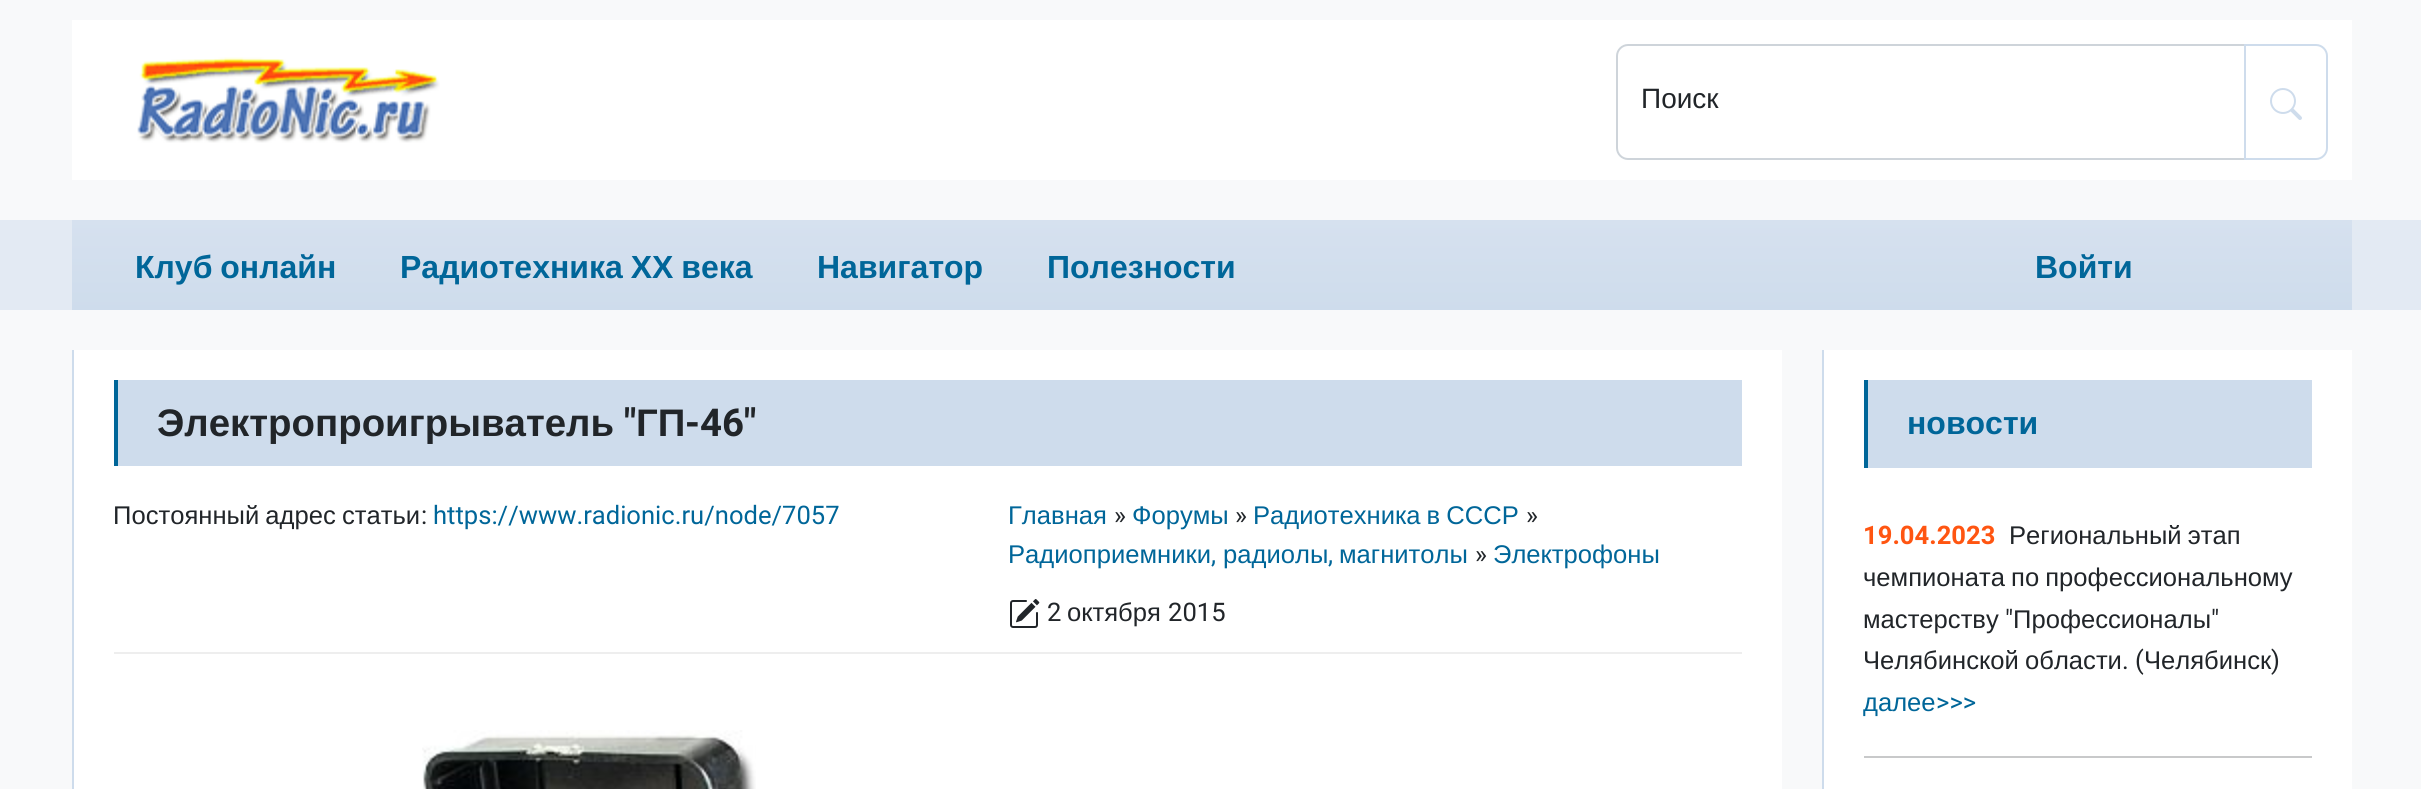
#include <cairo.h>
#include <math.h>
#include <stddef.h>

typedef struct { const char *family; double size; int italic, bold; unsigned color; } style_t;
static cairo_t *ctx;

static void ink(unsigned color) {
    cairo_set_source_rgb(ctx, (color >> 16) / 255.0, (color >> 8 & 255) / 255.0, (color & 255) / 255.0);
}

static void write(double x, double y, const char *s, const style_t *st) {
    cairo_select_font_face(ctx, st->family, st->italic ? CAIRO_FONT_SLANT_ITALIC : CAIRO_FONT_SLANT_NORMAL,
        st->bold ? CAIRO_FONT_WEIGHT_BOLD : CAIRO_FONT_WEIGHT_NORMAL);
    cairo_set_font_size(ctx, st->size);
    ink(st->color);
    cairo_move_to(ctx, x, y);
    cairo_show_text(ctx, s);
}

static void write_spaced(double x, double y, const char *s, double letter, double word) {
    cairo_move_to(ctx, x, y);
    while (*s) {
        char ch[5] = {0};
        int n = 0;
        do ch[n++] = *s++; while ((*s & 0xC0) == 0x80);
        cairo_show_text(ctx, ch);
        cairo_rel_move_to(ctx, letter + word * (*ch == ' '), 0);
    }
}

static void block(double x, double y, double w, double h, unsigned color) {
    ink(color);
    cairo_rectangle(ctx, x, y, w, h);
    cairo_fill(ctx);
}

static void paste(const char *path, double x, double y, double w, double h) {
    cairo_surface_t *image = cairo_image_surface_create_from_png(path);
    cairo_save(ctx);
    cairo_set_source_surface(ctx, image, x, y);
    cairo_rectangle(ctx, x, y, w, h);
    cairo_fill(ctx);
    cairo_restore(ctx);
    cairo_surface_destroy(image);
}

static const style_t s1 = {"Liberation Sans", 28, 0, 0, 0x212529};
static const style_t s2 = {"Liberation Sans", 32, 0, 1, 0x006699};
static const style_t s3 = {"Liberation Sans", 38.4, 0, 1, 0x212529};
static const style_t s4 = {"Roboto", 38.4, 0, 1, 0x212529};
static const style_t s5 = {"Roboto", 25.6, 0, 0, 0x212529};
static const style_t s6 = {"Roboto", 25.6, 0, 0, 0x006699};
static const style_t s7 = {"Liberation Sans", 25.6, 0, 0, 0x006699};
static const style_t s8 = {"Liberation Sans", 25.6, 0, 0, 0x212529};
static const style_t s9 = {"Roboto", 25.6, 0, 1, 0xff5511};

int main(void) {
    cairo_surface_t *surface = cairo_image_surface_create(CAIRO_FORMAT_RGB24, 2421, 789);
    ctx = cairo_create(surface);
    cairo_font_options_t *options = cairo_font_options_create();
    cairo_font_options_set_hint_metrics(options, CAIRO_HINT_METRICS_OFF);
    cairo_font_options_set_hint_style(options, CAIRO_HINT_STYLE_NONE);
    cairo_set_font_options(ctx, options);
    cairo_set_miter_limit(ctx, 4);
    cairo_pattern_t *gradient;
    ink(0xf8f9fa);
    cairo_paint(ctx);
    block(72, 20, 2280, 160, 0xffffff);
    paste("pic1.png", 137, 57, 303, 86);
    cairo_new_path(ctx);
    cairo_move_to(ctx, 1628, 45);
    cairo_line_to(ctx, 2245, 45);
    cairo_line_to(ctx, 2245, 159);
    cairo_line_to(ctx, 1628, 159);
    cairo_curve_to(ctx, 1622, 159, 1617, 154, 1617, 148);
    cairo_line_to(ctx, 1617, 56);
    cairo_curve_to(ctx, 1617, 50, 1622, 45, 1628, 45);
    cairo_close_path(ctx);
    ink(0xced4da);
    cairo_stroke(ctx);
    write(1641, 108, "Поиск", &s1);
    cairo_new_path(ctx);
    cairo_move_to(ctx, 2245, 45);
    cairo_line_to(ctx, 2316, 45);
    cairo_curve_to(ctx, 2322, 45, 2327, 50, 2327, 56);
    cairo_line_to(ctx, 2327, 148);
    cairo_curve_to(ctx, 2327, 154, 2322, 159, 2316, 159);
    cairo_line_to(ctx, 2245, 159);
    cairo_close_path(ctx);
    ink(0xcedcec);
    cairo_stroke(ctx);
    paste("pic2.png", 2270, 88, 32, 32);
    block(0, 220, 2421, 90, 0xe3eaf3);
    gradient = cairo_pattern_create_linear(1212, 220, 1212, 310);
    cairo_pattern_add_color_stop_rgba(gradient, 0, 0.839, 0.882, 0.937, 1);
    cairo_pattern_add_color_stop_rgba(gradient, 1, 0.808, 0.863, 0.925, 1);
    cairo_set_source(ctx, gradient);
    cairo_pattern_destroy(gradient);
    cairo_rectangle(ctx, 72, 220, 2280, 90);
    cairo_fill(ctx);
    cairo_select_font_face(ctx, "Liberation Sans", CAIRO_FONT_SLANT_NORMAL, CAIRO_FONT_WEIGHT_BOLD);
    cairo_set_font_size(ctx, 32);
    ink(0x006699);
    write_spaced(135, 278, "Клуб онлайн", 0, -1);
    write_spaced(400, 278, "Радиотехника ХХ века", 0, -1);
    write(817, 278, "Навигатор", &s2);
    write(1047, 278, "Полезности", &s2);
    write(2035, 278, "Войти", &s2);
    block(74, 350, 1708, 439, 0xffffff);
    block(72, 350, 2, 439, 0xcedcec);
    block(118, 380, 1624, 86, 0xcedcec);
    block(114, 380, 4, 86, 0x006699);
    write(157, 436, "Электропроигрыватель", &s3);
    write(624, 436, "\"", &s4);
    write(636, 436, "ГП", &s3);
    write(685, 436, "-46\"", &s4);
    block(114, 652, 1628, 2, 0xeeeeee);
    cairo_select_font_face(ctx, "Liberation Sans", CAIRO_FONT_SLANT_NORMAL, CAIRO_FONT_WEIGHT_NORMAL);
    cairo_set_font_size(ctx, 25.6);
    ink(0x212529);
    write_spaced(113, 524, "Постоянный адрес статьи", 0, -1);
    write(421, 524, ":", &s5);
    write(433, 524, "https://www.radionic.ru/node/7057", &s6);
    write(1008, 524, "Главная", &s7);
    write(1114, 524, "»", &s5);
    write(1132, 524, "Форумы", &s7);
    write(1235, 524, "»", &s5);
    cairo_select_font_face(ctx, "Liberation Sans", CAIRO_FONT_SLANT_NORMAL, CAIRO_FONT_WEIGHT_NORMAL);
    ink(0x006699);
    write_spaced(1253, 524, "Радиотехника в СССР", 0, -1);
    write(1526, 524, "»", &s5);
    write(1008, 563, "Радиоприемники", &s7);
    write(1223, 563, "радиолы", &s7);
    write(1339, 563, "магнитолы", &s7);
    write(1475, 563, "»", &s5);
    write(1493, 563, "Электрофоны", &s7);
    write(1211, 563, ",", &s6);
    write(1328, 563, ",", &s6);
    paste("pic3.png", 1010, 599, 30, 29);
    write(1047, 621, "2", &s5);
    write(1067, 621, "октября", &s8);
    write(1168, 621, "2015", &s5);
    paste("pic4.png", 422, 730, 334, 59);
    block(1824, 350, 528, 439, 0xffffff);
    block(1822, 350, 2, 439, 0xcedcec);
    block(1868, 380, 444, 88, 0xcedcec);
    block(1864, 380, 4, 88, 0x006699);
    write(1907, 434, "новости", &s2);
    write(1863, 544, "19.04.2023", &s9);
    cairo_select_font_face(ctx, "Liberation Sans", CAIRO_FONT_SLANT_NORMAL, CAIRO_FONT_WEIGHT_NORMAL);
    ink(0x212529);
    write_spaced(2009, 544, "Региональный этап", 0, -1);
    write_spaced(1863, 586, "чемпионата по профессиональному", 0, -1);
    write(1863, 628, "мастерству", &s8);
    write(2005, 628, "\"", &s5);
    write(2013, 628, "Профессионалы", &s8);
    write(2211, 628, "\"", &s5);
    write(1863, 669, "Челябинской", &s8);
    write(2025, 669, "области", &s8);
    write(2122, 669, ". (", &s5);
    write(2144, 669, "Челябинск", &s8);
    write(2271, 669, ")", &s5);
    write(1863, 711, "далее", &s7);
    write(1936, 711, ">>>", &s6);
    block(1864, 756, 448, 2, 0xc8c9ca);
    cairo_surface_write_to_png(surface, "screenshot.png");
    cairo_font_options_destroy(options);
    cairo_destroy(ctx);
    cairo_surface_destroy(surface);
    return 0;
}
